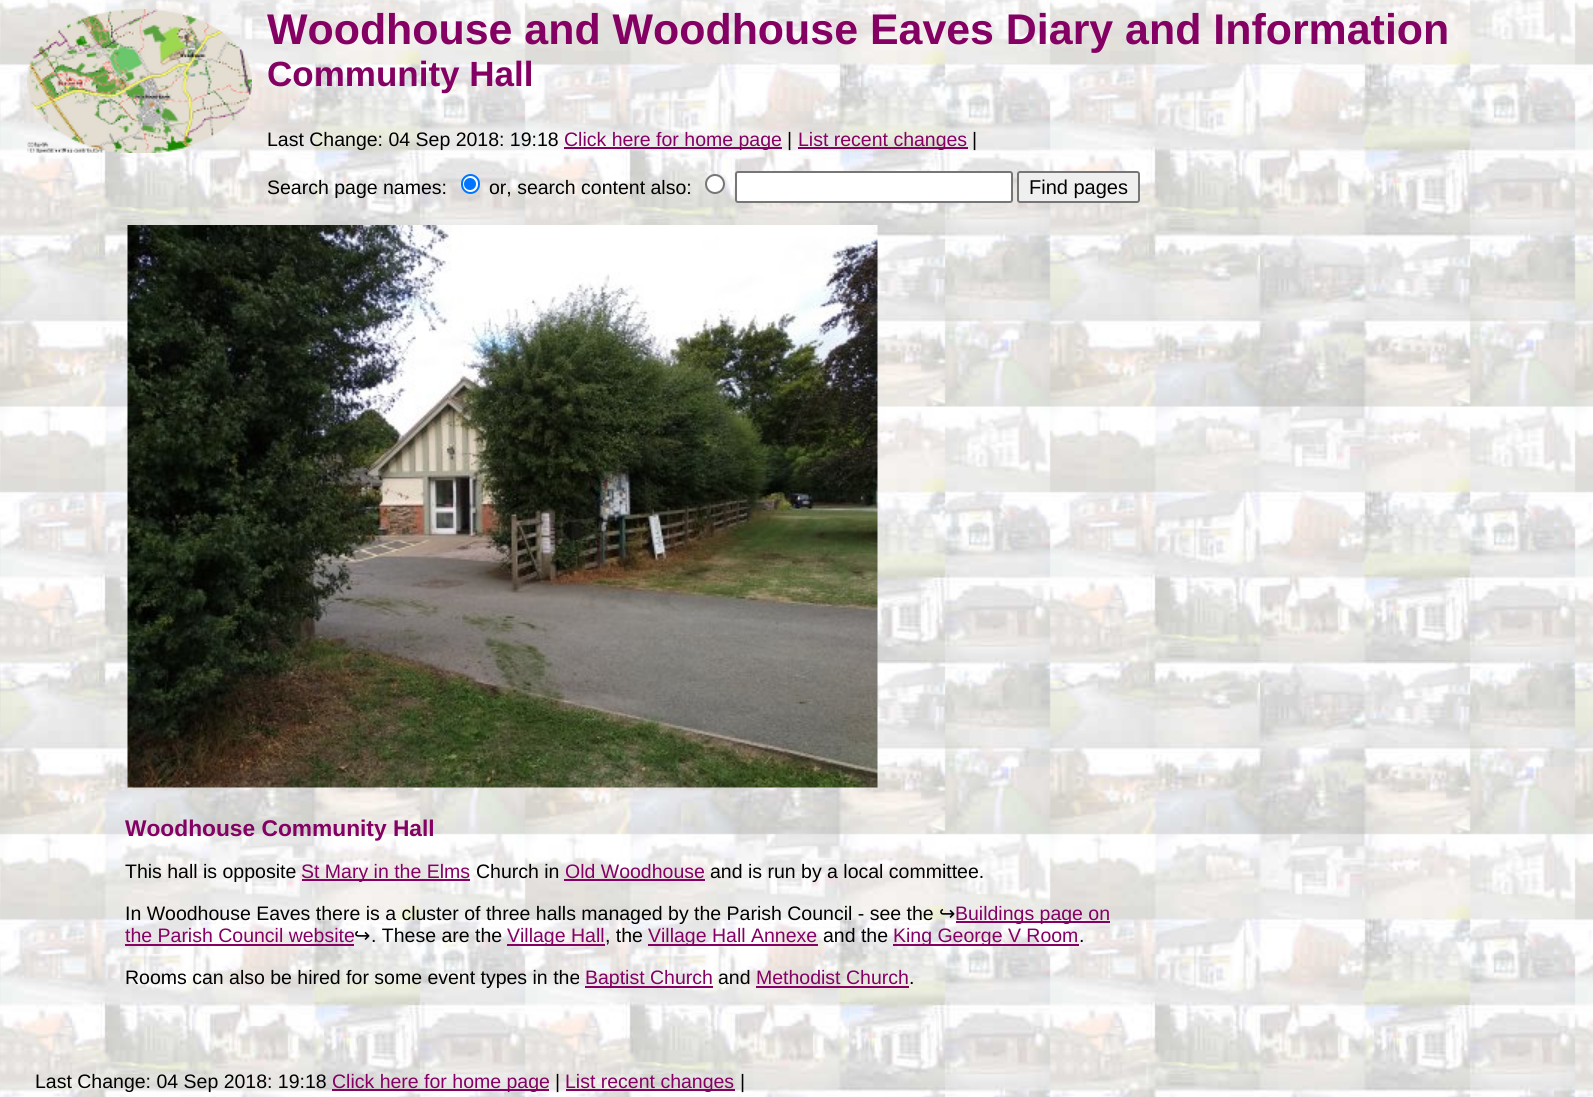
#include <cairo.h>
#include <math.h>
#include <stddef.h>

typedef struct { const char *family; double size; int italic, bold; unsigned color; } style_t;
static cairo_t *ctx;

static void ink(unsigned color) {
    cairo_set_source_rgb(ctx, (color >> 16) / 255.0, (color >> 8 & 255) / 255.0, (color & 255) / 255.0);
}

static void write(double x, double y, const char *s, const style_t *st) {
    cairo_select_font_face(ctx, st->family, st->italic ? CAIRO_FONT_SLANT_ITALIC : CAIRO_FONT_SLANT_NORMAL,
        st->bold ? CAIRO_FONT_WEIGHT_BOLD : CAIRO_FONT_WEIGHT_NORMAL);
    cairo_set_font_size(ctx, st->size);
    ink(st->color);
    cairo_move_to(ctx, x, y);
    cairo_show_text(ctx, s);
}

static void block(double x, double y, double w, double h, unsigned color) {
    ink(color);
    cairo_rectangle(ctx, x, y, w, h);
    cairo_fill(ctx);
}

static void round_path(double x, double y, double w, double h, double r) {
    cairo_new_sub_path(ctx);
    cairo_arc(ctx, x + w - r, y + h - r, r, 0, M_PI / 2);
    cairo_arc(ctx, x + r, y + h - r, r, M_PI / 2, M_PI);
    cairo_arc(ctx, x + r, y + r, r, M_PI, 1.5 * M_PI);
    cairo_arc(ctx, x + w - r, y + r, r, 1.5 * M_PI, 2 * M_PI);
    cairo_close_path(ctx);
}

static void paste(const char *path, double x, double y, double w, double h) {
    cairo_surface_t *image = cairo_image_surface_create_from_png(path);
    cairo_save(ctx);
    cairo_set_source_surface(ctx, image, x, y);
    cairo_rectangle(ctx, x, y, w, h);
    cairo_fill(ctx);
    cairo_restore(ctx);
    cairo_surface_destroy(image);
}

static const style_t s1 = {"Liberation Sans", 42.9, 0, 1, 0x840063};
static const style_t s2 = {"Liberation Sans", 35, 0, 1, 0x840063};
static const style_t s3 = {"Liberation Sans", 19.5, 0, 0, 0x000000};
static const style_t s4 = {"Liberation Sans", 19.5, 0, 0, 0x840063};
static const style_t s5 = {"Liberation Sans", 20, 0, 0, 0x000000};
static const style_t s6 = {"Liberation Sans", 22.75, 0, 1, 0x840063};
static const style_t s7 = {"DejaVu Sans", 19.5, 0, 0, 0x000000};

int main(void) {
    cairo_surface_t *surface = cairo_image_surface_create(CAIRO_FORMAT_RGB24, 1593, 1097);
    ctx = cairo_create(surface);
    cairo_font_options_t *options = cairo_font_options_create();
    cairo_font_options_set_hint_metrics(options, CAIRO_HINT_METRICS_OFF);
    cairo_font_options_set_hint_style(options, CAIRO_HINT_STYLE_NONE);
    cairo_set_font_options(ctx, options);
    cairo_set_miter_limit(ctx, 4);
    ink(0xffffff);
    cairo_paint(ctx);
    paste("pic1.png", 0, 0, 1593, 1097);
    paste("pic2.png", 27, 9, 225, 144);
    write(267, 44, "Woodhouse and Woodhouse Eaves Diary and Information", &s1);
    write(267, 86, "Community Hall", &s2);
    write(267, 146, "Last Change: 04 Sep 2018: 19:18", &s3);
    block(564, 147, 218, 2, 0x840063);
    write(564, 146, "Click here for home page", &s4);
    write(787, 146, "|", &s3);
    block(798, 147, 170, 2, 0x840063);
    write(798, 146, "List recent changes", &s4);
    write(972, 146, "|", &s3);
    write(267, 194, "Search page names:", &s3);
    ink(0xffffff);
    round_path(462, 175, 17, 18, 8.5);
    cairo_fill_preserve(ctx);
    ink(0x0075ff);
    cairo_stroke(ctx);
    cairo_arc(ctx, 470, 184, 6, 0, 2 * M_PI);
    cairo_fill(ctx);
    write(489, 194, "or, search content also:", &s3);
    ink(0xffffff);
    cairo_new_path(ctx);
    cairo_arc(ctx, 715, 184, 9, 0, 2 * M_PI);
    cairo_fill_preserve(ctx);
    ink(0x767676);
    cairo_stroke(ctx);
    ink(0xffffff);
    round_path(736, 172, 276, 30, 2);
    cairo_fill_preserve(ctx);
    ink(0x767676);
    cairo_stroke(ctx);
    ink(0xefefef);
    round_path(1018, 172, 121, 30, 2);
    cairo_fill_preserve(ctx);
    ink(0x767676);
    cairo_stroke(ctx);
    write(1029, 194, "Find pages", &s5);
    paste("pic3.png", 127, 225, 751, 563);
    write(125, 836, "Woodhouse Community Hall", &s6);
    write(125, 878, "This hall is opposite", &s3);
    block(302, 879, 168, 2, 0x840063);
    write(301, 878, "St Mary in the Elms", &s4);
    write(476, 878, "Church in", &s3);
    write(565, 878, "Old Woodhouse", &s4);
    block(564, 879, 141, 2, 0x840063);
    write(710, 878, "and is run by a local committee.", &s3);
    write(125, 920, "In Woodhouse Eaves there is a cluster of three halls managed by the Parish Council - see the", &s3);
    write(939, 920, "↪", &s7);
    block(956, 921, 154, 2, 0x840063);
    write(955, 920, "Buildings page on", &s4);
    write(125, 942, "the Parish Council website", &s4);
    block(125, 944, 229, 2, 0x840063);
    write(354, 942, "↪", &s7);
    write(371, 942, ". These are the", &s3);
    block(507, 944, 98, 2, 0x840063);
    write(507, 942, "Village Hall", &s4);
    write(605, 942, ", the", &s3);
    block(648, 944, 170, 2, 0x840063);
    write(648, 942, "Village Hall Annexe", &s4);
    write(823, 942, "and the", &s3);
    block(893, 944, 186, 2, 0x840063);
    write(893, 942, "King George V Room", &s4);
    write(1079, 942, ".", &s3);
    write(125, 984, "Rooms can also be hired for some event types in the", &s3);
    block(585, 986, 128, 2, 0x840063);
    write(585, 984, "Baptist Church", &s4);
    write(718, 984, "and", &s3);
    write(756, 984, "Methodist Church", &s4);
    block(756, 986, 153, 2, 0x840063);
    write(909, 984, ".", &s3);
    write(35, 1088, "Last Change: 04 Sep 2018: 19:18", &s3);
    block(332, 1089, 217, 2, 0x840063);
    write(332, 1088, "Click here for home page", &s4);
    write(555, 1088, "|", &s3);
    block(566, 1089, 169, 2, 0x840063);
    write(565, 1088, "List recent changes", &s4);
    write(740, 1088, "|", &s3);
    cairo_surface_write_to_png(surface, "screenshot.png");
    cairo_font_options_destroy(options);
    cairo_destroy(ctx);
    cairo_surface_destroy(surface);
    return 0;
}
